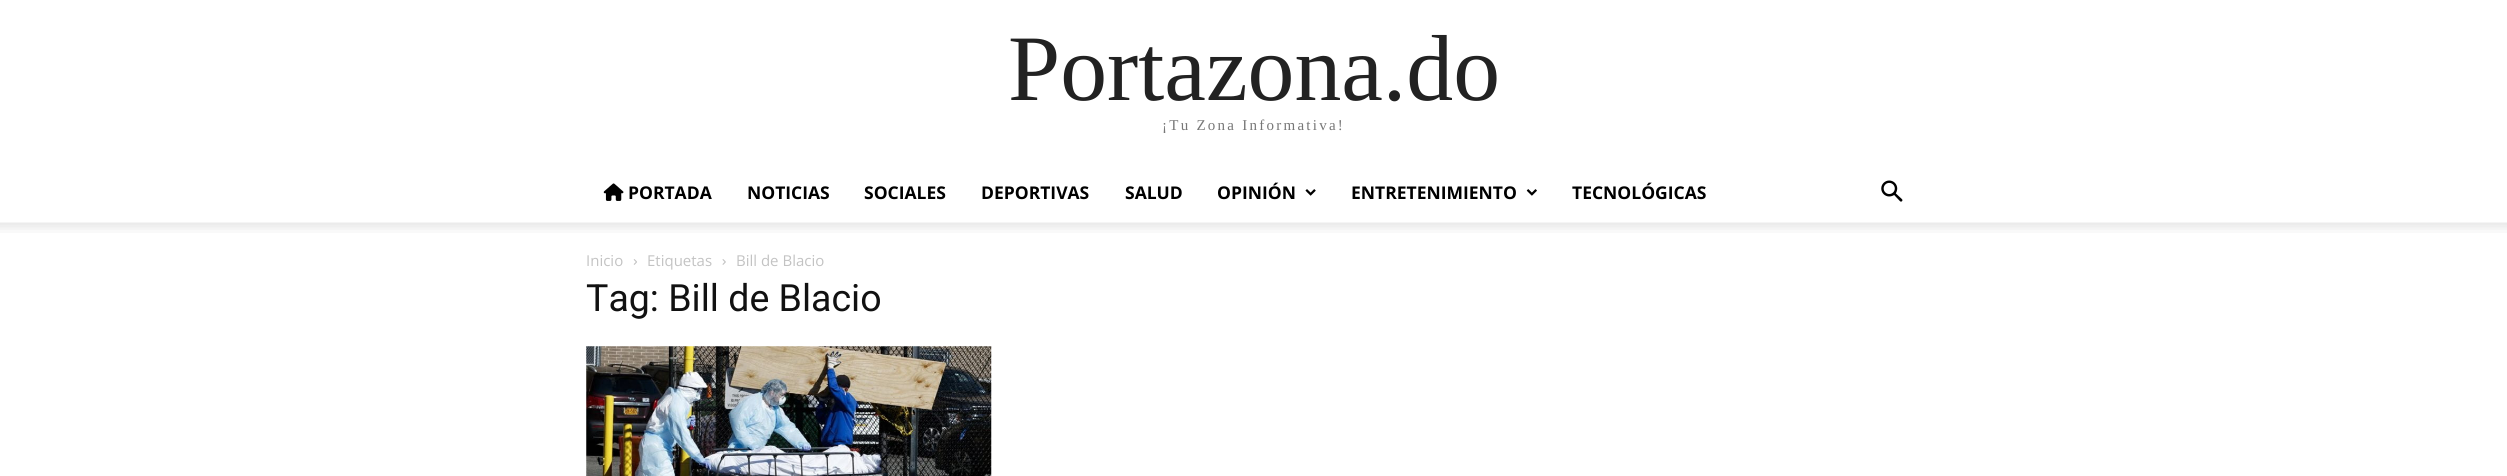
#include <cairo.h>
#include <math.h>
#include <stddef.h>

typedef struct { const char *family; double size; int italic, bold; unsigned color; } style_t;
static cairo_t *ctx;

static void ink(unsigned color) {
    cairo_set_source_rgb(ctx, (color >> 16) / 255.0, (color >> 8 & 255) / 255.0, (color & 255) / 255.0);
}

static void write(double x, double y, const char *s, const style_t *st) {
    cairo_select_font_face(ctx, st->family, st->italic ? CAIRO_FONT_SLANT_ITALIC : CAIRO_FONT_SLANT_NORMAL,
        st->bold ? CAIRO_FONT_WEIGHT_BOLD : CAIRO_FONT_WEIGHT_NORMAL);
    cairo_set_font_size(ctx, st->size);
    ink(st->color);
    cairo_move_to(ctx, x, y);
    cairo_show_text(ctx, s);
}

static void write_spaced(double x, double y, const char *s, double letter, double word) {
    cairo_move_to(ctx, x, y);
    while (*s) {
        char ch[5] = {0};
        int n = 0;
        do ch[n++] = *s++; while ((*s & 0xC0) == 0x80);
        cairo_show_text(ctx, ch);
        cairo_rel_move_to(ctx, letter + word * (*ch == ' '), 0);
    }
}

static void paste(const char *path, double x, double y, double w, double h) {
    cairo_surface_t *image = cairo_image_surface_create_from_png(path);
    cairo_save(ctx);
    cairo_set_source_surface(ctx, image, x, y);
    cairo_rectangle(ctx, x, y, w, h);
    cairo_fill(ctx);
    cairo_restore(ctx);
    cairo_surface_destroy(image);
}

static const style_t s1 = {"Liberation Serif", 93.75, 0, 0, 0x222222};
static const style_t s2 = {"Open Sans", 17.5, 0, 1, 0x000000};
static const style_t s3 = {"Open Sans", 15, 0, 0, 0xc3c3c3};
static const style_t s4 = {"Roboto", 37.5, 0, 0, 0x111111};

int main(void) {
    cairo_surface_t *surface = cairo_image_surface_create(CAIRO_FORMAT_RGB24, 2507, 476);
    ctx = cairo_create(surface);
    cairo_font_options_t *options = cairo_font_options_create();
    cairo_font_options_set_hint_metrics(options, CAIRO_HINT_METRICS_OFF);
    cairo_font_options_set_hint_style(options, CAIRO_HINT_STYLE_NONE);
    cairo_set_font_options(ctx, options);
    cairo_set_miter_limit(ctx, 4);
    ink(0xffffff);
    cairo_paint(ctx);
    write(1008, 100, "Portazona.do", &s1);
    cairo_set_font_size(ctx, 15);
    ink(0x777777);
    write_spaced(1162, 130, "¡Tu Zona Informativa!", 2.25, 0);
    paste("pic1.png", 603, 183, 21, 18);
    write(628, 199, "PORTADA", &s2);
    write(747, 199, "NOTICIAS", &s2);
    write(864, 199, "SOCIALES", &s2);
    write(981, 199, "DEPORTIVAS", &s2);
    write(1125, 199, "SALUD", &s2);
    write(1217, 199, "OPINIÓN", &s2);
    paste("pic2.png", 1305, 189, 11, 7);
    write(1351, 199, "ENTRETENIMIENTO", &s2);
    paste("pic3.png", 1526, 189, 11, 7);
    write(1572, 199, "TECNOLÓGICAS", &s2);
    paste("pic4.png", 1881, 180, 22, 22);
    paste("pic5.png", 0, 222, 2507, 11);
    write(586, 266, "Inicio", &s3);
    paste("pic6.png", 633, 259, 4, 6);
    write(647, 266, "Etiquetas", &s3);
    paste("pic7.png", 722, 259, 4, 6);
    write(736, 266, "Bill de Blacio", &s3);
    write(586, 311, "Tag: Bill de Blacio", &s4);
    paste("pic8.png", 586, 346, 406, 130);
    cairo_surface_write_to_png(surface, "screenshot.png");
    cairo_font_options_destroy(options);
    cairo_destroy(ctx);
    cairo_surface_destroy(surface);
    return 0;
}
